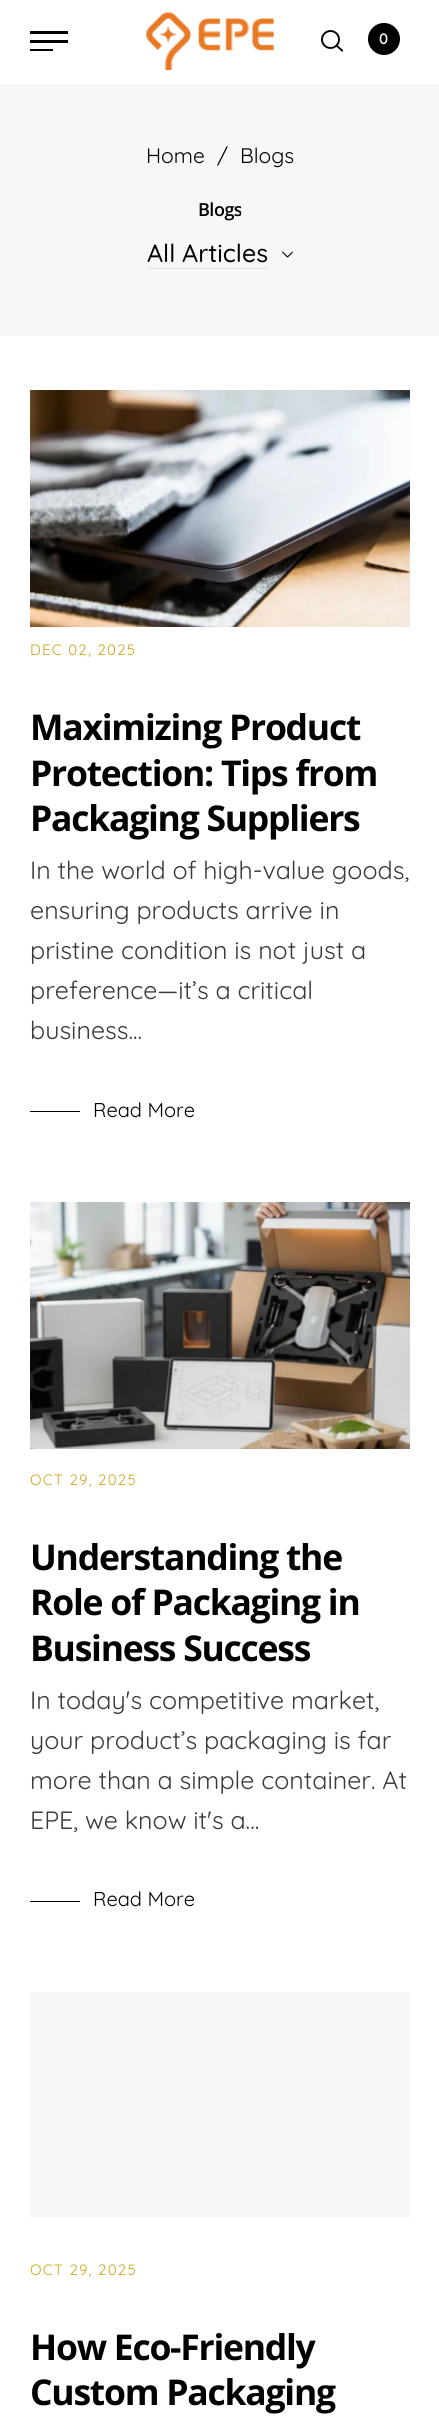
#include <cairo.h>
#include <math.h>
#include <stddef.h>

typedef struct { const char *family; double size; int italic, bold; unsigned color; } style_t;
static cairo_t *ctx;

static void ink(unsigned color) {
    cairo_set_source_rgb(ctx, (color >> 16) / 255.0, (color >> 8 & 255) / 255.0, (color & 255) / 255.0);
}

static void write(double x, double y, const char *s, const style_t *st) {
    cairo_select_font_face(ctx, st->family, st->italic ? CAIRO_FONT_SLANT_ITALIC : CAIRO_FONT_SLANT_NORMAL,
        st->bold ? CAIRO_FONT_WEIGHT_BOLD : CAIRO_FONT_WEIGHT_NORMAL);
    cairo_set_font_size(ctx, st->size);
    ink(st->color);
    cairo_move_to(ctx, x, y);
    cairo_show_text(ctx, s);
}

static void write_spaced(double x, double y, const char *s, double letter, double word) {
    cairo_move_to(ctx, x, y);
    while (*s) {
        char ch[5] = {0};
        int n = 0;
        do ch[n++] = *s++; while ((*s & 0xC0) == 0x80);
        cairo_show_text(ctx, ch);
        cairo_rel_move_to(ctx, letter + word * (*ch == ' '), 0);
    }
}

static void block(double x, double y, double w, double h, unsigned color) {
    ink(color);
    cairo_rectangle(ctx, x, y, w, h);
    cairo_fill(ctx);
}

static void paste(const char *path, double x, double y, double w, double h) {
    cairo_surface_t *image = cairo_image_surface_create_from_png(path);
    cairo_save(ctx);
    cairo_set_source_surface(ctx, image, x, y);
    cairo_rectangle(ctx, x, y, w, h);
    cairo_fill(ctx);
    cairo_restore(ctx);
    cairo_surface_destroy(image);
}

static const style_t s1 = {"Quicksand SemiBold", 15, 0, 0, 0xffffff};
static const style_t s2 = {"Quicksand", 21, 0, 0, 0x000000};
static const style_t s3 = {"Quicksand Medium", 25, 0, 0, 0x000000};
static const style_t s4 = {"Quicksand", 25, 0, 0, 0x3a3a3a};
static const style_t s5 = {"Quicksand", 20, 0, 0, 0x000000};

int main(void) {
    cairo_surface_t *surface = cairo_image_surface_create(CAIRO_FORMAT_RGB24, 439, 2427);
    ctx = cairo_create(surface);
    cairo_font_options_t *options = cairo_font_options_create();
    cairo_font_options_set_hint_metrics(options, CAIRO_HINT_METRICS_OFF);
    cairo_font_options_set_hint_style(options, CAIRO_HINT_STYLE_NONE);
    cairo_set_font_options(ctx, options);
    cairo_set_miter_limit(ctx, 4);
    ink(0xffffff);
    cairo_paint(ctx);
    block(30, 31, 38, 3, 0x000000);
    block(30, 40, 38, 3, 0x000000);
    block(30, 49, 23, 2, 0x000000);
    paste("pic1.png", 146, 12, 128, 58);
    cairo_new_path(ctx);
    cairo_move_to(ctx, 342, 50.5);
    cairo_line_to(ctx, 336.5, 45.5);
    cairo_set_line_width(ctx, 1.9);
    cairo_set_line_cap(ctx, CAIRO_LINE_CAP_SQUARE);
    cairo_stroke(ctx);
    cairo_arc(ctx, 330.5, 39.5, 8.5, 0, 2 * M_PI);
    cairo_set_line_cap(ctx, CAIRO_LINE_CAP_BUTT);
    cairo_stroke(ctx);
    cairo_arc(ctx, 384, 39, 16, 0, 2 * M_PI);
    cairo_fill(ctx);
    write(379, 44, "0", &s1);
    block(0, 84, 439, 252, 0xf7f7f7);
    write(146, 163, "Home", &s2);
    write(217, 163, "/", &s2);
    write(240, 163, "Blogs", &s2);
    cairo_save(ctx);
    cairo_rectangle(ctx, 199, 199, 42, 24);
    cairo_clip(ctx);
    cairo_select_font_face(ctx, "Open Sans SemiBold", CAIRO_FONT_SLANT_NORMAL, CAIRO_FONT_WEIGHT_NORMAL);
    cairo_set_font_size(ctx, 18);
    write_spaced(198, 216, "Blogs", -0.5, 0);
    cairo_restore(ctx);
    block(148, 268, 120, 1, 0xdedede);
    write(147, 262, "All Articles", &s3);
    paste("pic2.png", 282, 251, 11, 7);
    paste("pic3.png", 30, 390, 380, 237);
    cairo_select_font_face(ctx, "Quicksand", CAIRO_FONT_SLANT_NORMAL, CAIRO_FONT_WEIGHT_NORMAL);
    cairo_set_font_size(ctx, 15);
    ink(0xcea61c);
    write_spaced(30, 655, "DEC 02, 2025", 1.25, 0);
    cairo_select_font_face(ctx, "Open Sans", CAIRO_FONT_SLANT_NORMAL, CAIRO_FONT_WEIGHT_BOLD);
    cairo_set_font_size(ctx, 35.5);
    ink(0x000000);
    write_spaced(30, 740, "Maximizing Product", -1.25, 0);
    write_spaced(30, 786, "Protection: Tips from", -1.25, 0);
    write_spaced(30, 831, "Packaging Suppliers", -1.25, 0);
    write(30, 879, "In the world of high-value goods,", &s4);
    write(30, 919, "ensuring products arrive in", &s4);
    write(30, 959, "pristine condition is not just a", &s4);
    write(30, 999, "preference—it’s a critical", &s4);
    write(30, 1039, "business...", &s4);
    block(30, 1111, 50, 1, 0x000000);
    write(93, 1117, "Read More", &s5);
    paste("pic4.png", 30, 1202, 380, 247);
    cairo_set_font_size(ctx, 15);
    ink(0xcea61c);
    write_spaced(30, 1485, "OCT 29, 2025", 1.25, 0);
    cairo_select_font_face(ctx, "Open Sans", CAIRO_FONT_SLANT_NORMAL, CAIRO_FONT_WEIGHT_BOLD);
    cairo_set_font_size(ctx, 35.5);
    ink(0x000000);
    write_spaced(30, 1570, "Understanding the", -1.25, 0);
    write_spaced(30, 1615, "Role of Packaging in", -1.25, 0);
    write_spaced(30, 1661, "Business Success", -1.25, 0);
    write(30, 1709, "In today's competitive market,", &s4);
    write(30, 1749, "your product’s packaging is far", &s4);
    write(30, 1789, "more than a simple container. At", &s4);
    write(30, 1829, "EPE, we know it's a...", &s4);
    block(30, 1901, 50, 1, 0x000000);
    write(93, 1906, "Read More", &s5);
    block(30, 1992, 380, 225, 0xf6f6f6);
    cairo_set_font_size(ctx, 15);
    ink(0xcea61c);
    write_spaced(30, 2275, "OCT 29, 2025", 1.25, 0);
    cairo_select_font_face(ctx, "Open Sans", CAIRO_FONT_SLANT_NORMAL, CAIRO_FONT_WEIGHT_BOLD);
    cairo_set_font_size(ctx, 35.5);
    ink(0x000000);
    write_spaced(30, 2360, "How Eco-Friendly", -1.25, 0);
    write_spaced(30, 2405, "Custom Packaging", -1.25, 0);
    cairo_surface_write_to_png(surface, "screenshot.png");
    cairo_font_options_destroy(options);
    cairo_destroy(ctx);
    cairo_surface_destroy(surface);
    return 0;
}
